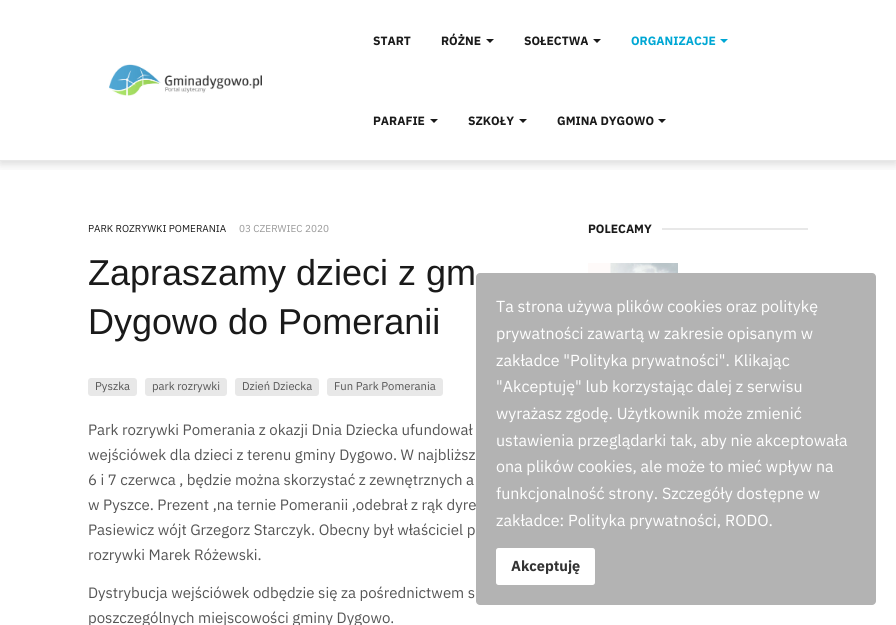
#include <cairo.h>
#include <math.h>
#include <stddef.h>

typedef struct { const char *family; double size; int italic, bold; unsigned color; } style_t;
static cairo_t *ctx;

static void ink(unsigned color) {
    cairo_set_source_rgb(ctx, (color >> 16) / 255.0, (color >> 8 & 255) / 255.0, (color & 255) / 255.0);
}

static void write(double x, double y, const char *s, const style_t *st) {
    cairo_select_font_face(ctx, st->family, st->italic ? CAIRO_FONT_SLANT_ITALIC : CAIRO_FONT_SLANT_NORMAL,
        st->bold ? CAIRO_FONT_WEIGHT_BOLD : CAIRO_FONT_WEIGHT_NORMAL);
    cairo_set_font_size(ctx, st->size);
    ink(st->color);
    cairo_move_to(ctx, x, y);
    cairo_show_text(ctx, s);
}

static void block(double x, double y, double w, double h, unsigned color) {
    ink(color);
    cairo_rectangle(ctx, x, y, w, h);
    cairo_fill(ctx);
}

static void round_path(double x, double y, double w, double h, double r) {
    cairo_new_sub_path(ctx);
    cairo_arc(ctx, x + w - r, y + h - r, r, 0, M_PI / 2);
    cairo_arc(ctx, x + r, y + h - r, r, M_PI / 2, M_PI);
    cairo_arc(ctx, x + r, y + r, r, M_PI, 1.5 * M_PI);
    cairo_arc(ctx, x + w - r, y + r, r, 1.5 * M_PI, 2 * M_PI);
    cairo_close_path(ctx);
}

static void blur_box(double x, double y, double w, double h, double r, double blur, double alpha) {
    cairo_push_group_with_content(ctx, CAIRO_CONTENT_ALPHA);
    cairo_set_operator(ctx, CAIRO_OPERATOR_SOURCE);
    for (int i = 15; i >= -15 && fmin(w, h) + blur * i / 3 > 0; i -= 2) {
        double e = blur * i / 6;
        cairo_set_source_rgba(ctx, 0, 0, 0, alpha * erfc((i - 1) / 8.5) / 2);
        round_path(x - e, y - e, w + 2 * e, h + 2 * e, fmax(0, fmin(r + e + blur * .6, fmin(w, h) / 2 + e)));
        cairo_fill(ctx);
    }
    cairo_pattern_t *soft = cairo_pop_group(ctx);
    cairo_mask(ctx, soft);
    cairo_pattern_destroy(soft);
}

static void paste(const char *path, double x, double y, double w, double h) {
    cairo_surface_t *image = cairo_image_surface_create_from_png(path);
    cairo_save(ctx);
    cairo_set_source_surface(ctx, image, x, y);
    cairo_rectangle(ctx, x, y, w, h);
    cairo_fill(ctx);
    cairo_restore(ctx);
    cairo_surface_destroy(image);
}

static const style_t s1 = {"IBM Plex Sans", 12, 0, 1, 0x1a1a1a};
static const style_t s2 = {"IBM Plex Sans", 12, 0, 1, 0x00a7d4};
static const style_t s3 = {"IBM Plex Sans", 10, 0, 0, 0x1a1a1a};
static const style_t s4 = {"IBM Plex Sans", 10, 0, 0, 0x999999};
static const style_t s5 = {"Liberation Sans", 36, 0, 0, 0x1a1a1a};
static const style_t s6 = {"IBM Plex Sans", 11.25, 0, 0, 0x555555};
static const style_t s7 = {"IBM Plex Sans", 15, 0, 0, 0x555555};
static const style_t s8 = {"IBM Plex Sans", 16, 0, 0, 0xffffff};
static const style_t s9 = {"IBM Plex Sans", 14.5, 0, 1, 0x333333};

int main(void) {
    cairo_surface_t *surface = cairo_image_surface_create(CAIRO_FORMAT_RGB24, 896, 625);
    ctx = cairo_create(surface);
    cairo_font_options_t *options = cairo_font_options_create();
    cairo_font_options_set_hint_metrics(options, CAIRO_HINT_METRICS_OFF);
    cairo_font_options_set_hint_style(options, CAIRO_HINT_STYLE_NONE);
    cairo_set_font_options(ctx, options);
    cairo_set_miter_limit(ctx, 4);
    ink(0xffffff);
    cairo_paint(ctx);
    cairo_save(ctx);
    cairo_rectangle(ctx, 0, 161, 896, 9);
    cairo_clip(ctx);
    ink(0x000000);
    blur_box(0, 3, 896, 161, 0, 5, 0.15);
    cairo_restore(ctx);
    block(0, 160, 896, 1, 0xe8e8e8);
    paste("pic1.png", 109, 64, 153, 32);
    write(373, 45, "START", &s1);
    write(441, 45, "RÓŻNE", &s1);
    cairo_new_path(ctx);
    cairo_move_to(ctx, 486, 39);
    cairo_line_to(ctx, 494, 39);
    cairo_line_to(ctx, 490, 43);
    cairo_close_path(ctx);
    cairo_fill(ctx);
    write(524, 45, "SOŁECTWA", &s1);
    cairo_new_path(ctx);
    cairo_move_to(ctx, 593, 39);
    cairo_line_to(ctx, 601, 39);
    cairo_line_to(ctx, 597, 43);
    cairo_close_path(ctx);
    cairo_fill(ctx);
    write(631, 45, "ORGANIZACJE", &s2);
    cairo_new_path(ctx);
    cairo_move_to(ctx, 720, 39);
    cairo_line_to(ctx, 728, 39);
    cairo_line_to(ctx, 724, 43);
    cairo_close_path(ctx);
    cairo_fill(ctx);
    write(373, 125, "PARAFIE", &s1);
    cairo_new_path(ctx);
    cairo_move_to(ctx, 430, 119);
    cairo_line_to(ctx, 438, 119);
    cairo_line_to(ctx, 434, 123);
    cairo_close_path(ctx);
    cairo_fill(ctx);
    write(468, 125, "SZKOŁY", &s1);
    cairo_new_path(ctx);
    cairo_move_to(ctx, 519, 119);
    cairo_line_to(ctx, 527, 119);
    cairo_line_to(ctx, 523, 123);
    cairo_close_path(ctx);
    cairo_fill(ctx);
    write(557, 125, "GMINA DYGOWO", &s1);
    cairo_new_path(ctx);
    cairo_move_to(ctx, 658, 119);
    cairo_line_to(ctx, 666, 119);
    cairo_line_to(ctx, 662, 123);
    cairo_close_path(ctx);
    cairo_fill(ctx);
    write(88, 232, "PARK ROZRYWKI POMERANIA", &s3);
    write(239, 232, "03 CZERWIEC 2020", &s4);
    write(88, 285, "Zapraszamy dzieci z gm", &s5);
    write(88, 334, "Dygowo do Pomeranii", &s5);
    ink(0xe8e8e8);
    round_path(88, 378, 49, 18, 3);
    cairo_fill(ctx);
    write(95, 390, "Pyszka", &s6);
    ink(0xe8e8e8);
    round_path(145, 378, 82, 18, 3);
    cairo_fill(ctx);
    write(152, 390, "park rozrywki", &s6);
    ink(0xe8e8e8);
    round_path(235, 378, 84, 18, 3);
    cairo_fill(ctx);
    write(242, 390, "Dzień Dziecka", &s6);
    ink(0xe8e8e8);
    round_path(327, 378, 116, 18, 3);
    cairo_fill(ctx);
    write(334, 390, "Fun Park Pomerania", &s6);
    write(88, 435, "Park rozrywki Pomerania z okazji Dnia Dziecka ufundował", &s7);
    write(88, 460, "wejściówek dla dzieci z terenu gminy Dygowo. W najbliższ", &s7);
    write(88, 485, "6 i 7 czerwca , będzie można skorzystać z zewnętrznych a", &s7);
    write(88, 510, "w Pyszce. Prezent ,na ternie Pomeranii ,odebrał z rąk dyre", &s7);
    write(88, 535, "Pasiewicz wójt Grzegorz Starczyk. Obecny był właściciel p", &s7);
    write(88, 560, "rozrywki Marek Różewski.", &s7);
    write(88, 598, "Dystrybucja wejściówek odbędzie się za pośrednictwem s", &s7);
    write(88, 623, "poszczególnych miejscowości gminy Dygowo.", &s7);
    write(588, 233, "POLECAMY", &s1);
    block(662, 228, 146, 2, 0xe8e8e8);
    paste("pic2.png", 588, 263, 90, 10);
    ink(0xb3b3b3);
    round_path(476, 273, 400, 332, 4);
    cairo_fill(ctx);
    write(496, 312, "Ta strona używa plików cookies oraz politykę", &s8);
    write(496, 339, "prywatności zawartą w zakresie opisanym w", &s8);
    write(496, 366, "zakładce \"Polityka prywatności\". Klikając", &s8);
    write(496, 392, "\"Akceptuję\" lub korzystając dalej z serwisu", &s8);
    write(496, 419, "wyrażasz zgodę. Użytkownik może zmienić", &s8);
    write(496, 446, "ustawienia przeglądarki tak, aby nie akceptowała", &s8);
    write(496, 472, "ona plików cookies, ale może to mieć wpływ na", &s8);
    write(496, 499, "funkcjonalność strony. Szczegóły dostępne w", &s8);
    write(496, 526, "zakładce: Polityka prywatności, RODO.", &s8);
    round_path(496, 548, 99, 37, 2.5);
    cairo_fill(ctx);
    write(511, 571, "Akceptuję", &s9);
    cairo_surface_write_to_png(surface, "screenshot.png");
    cairo_font_options_destroy(options);
    cairo_destroy(ctx);
    cairo_surface_destroy(surface);
    return 0;
}
